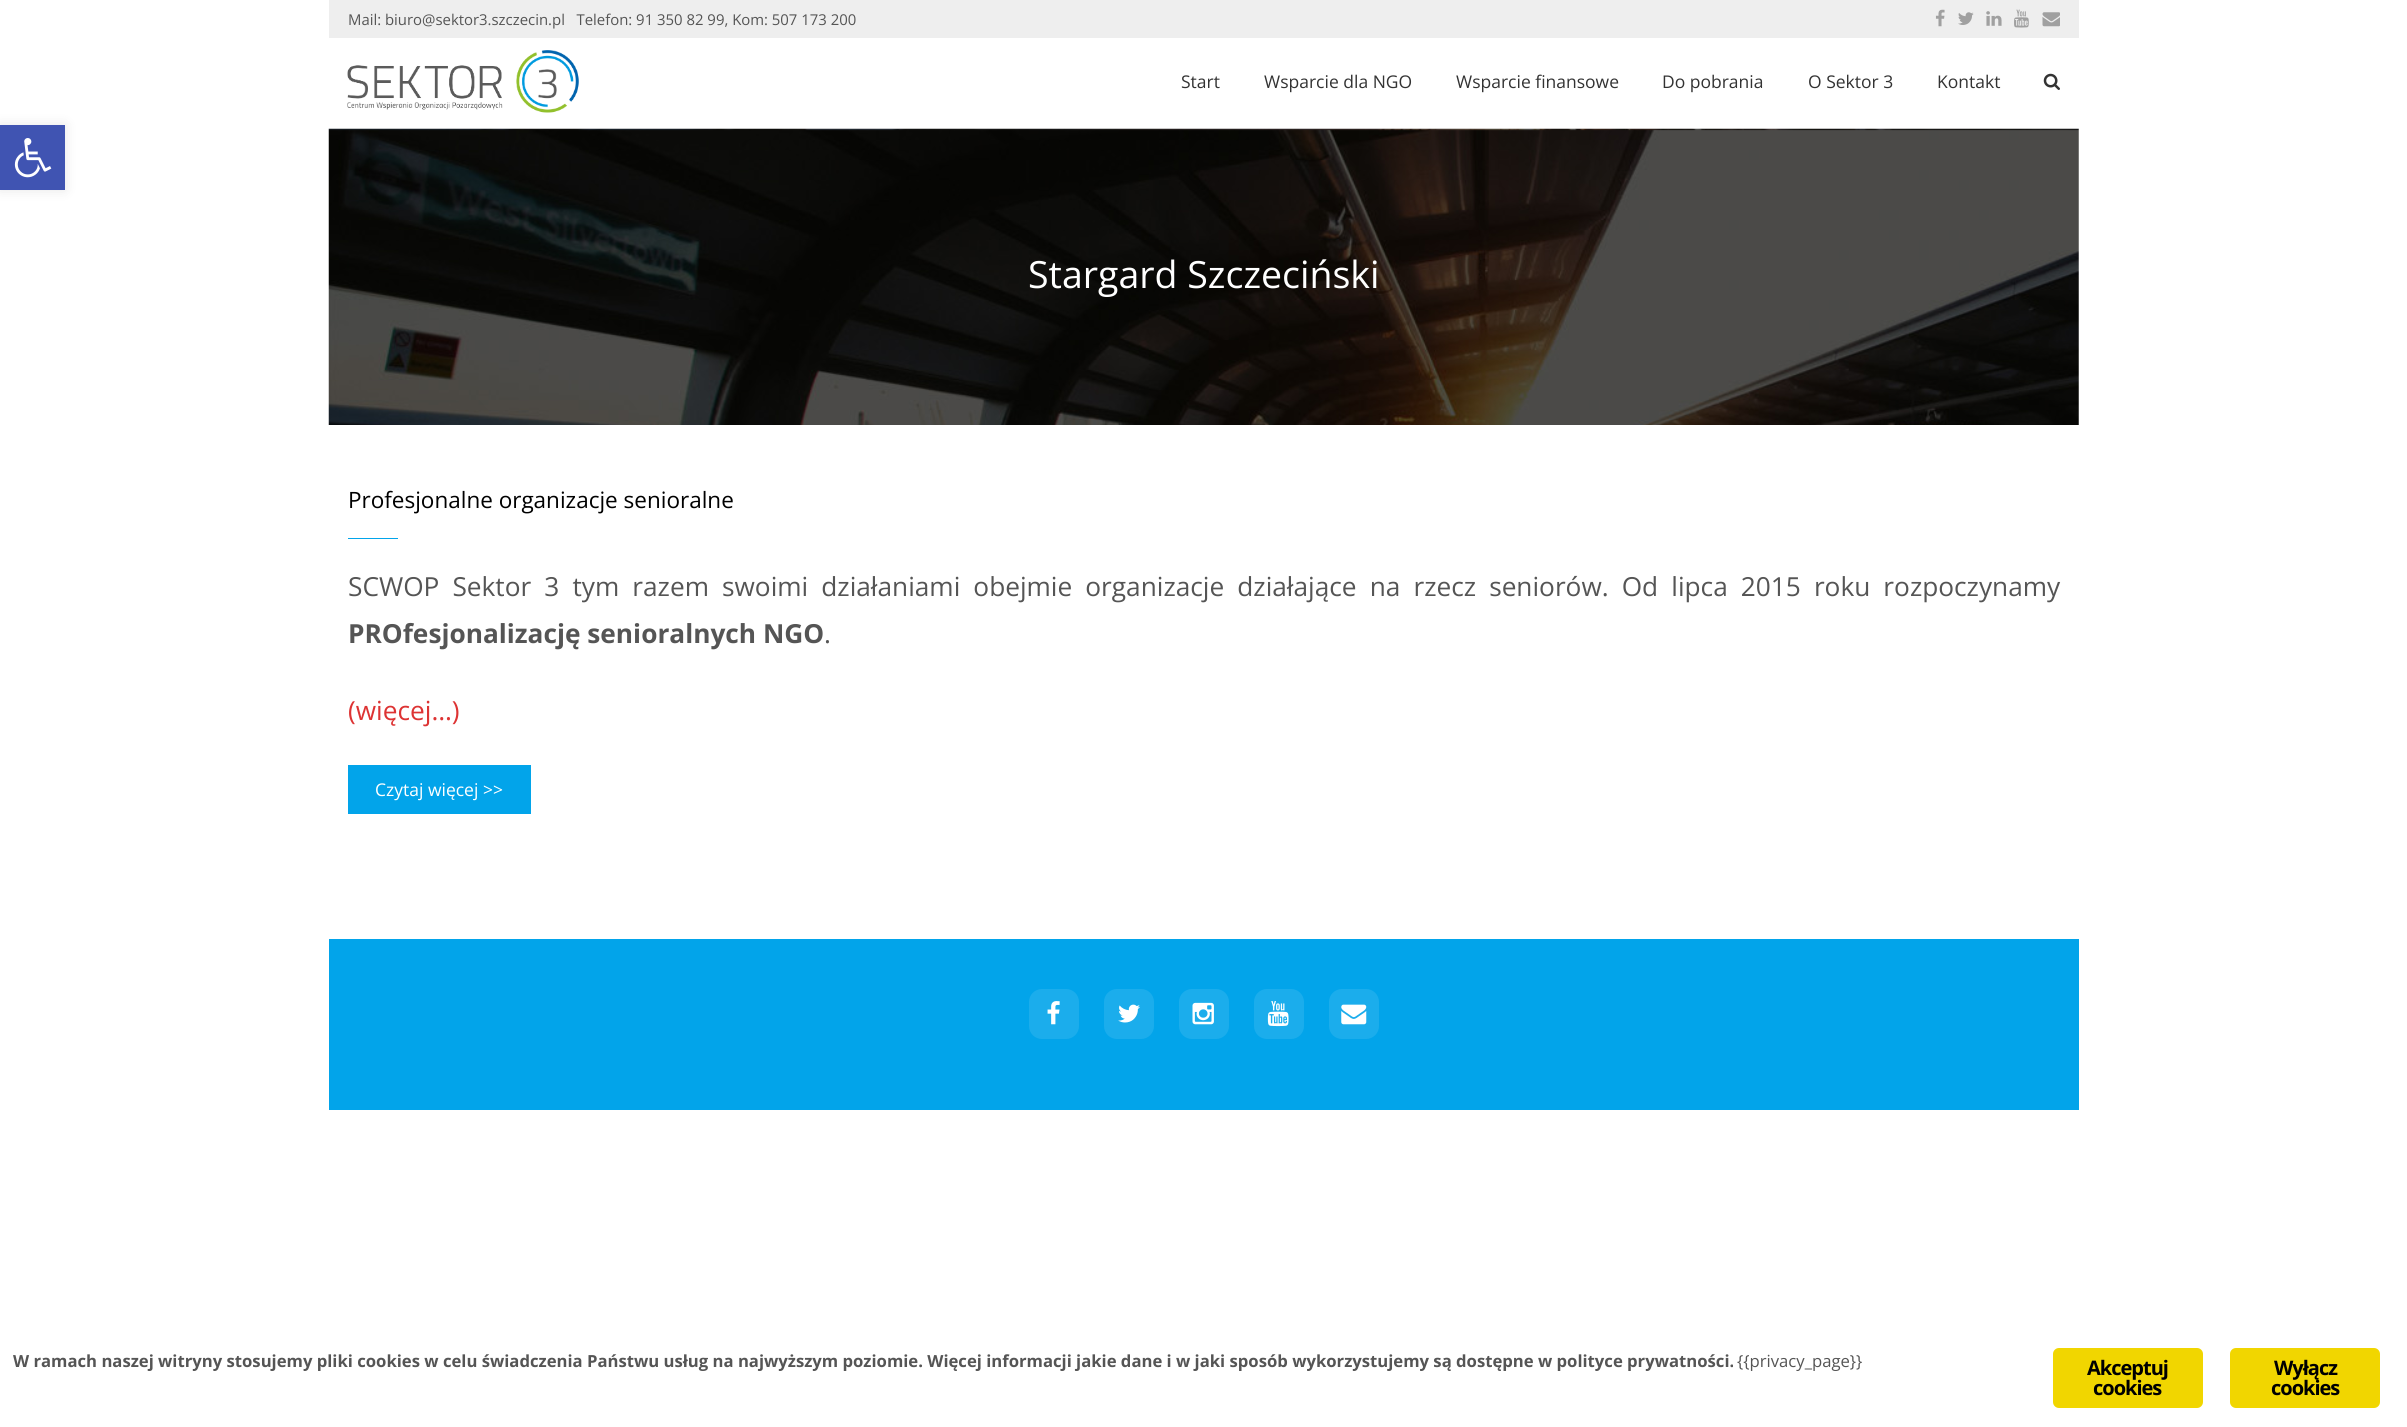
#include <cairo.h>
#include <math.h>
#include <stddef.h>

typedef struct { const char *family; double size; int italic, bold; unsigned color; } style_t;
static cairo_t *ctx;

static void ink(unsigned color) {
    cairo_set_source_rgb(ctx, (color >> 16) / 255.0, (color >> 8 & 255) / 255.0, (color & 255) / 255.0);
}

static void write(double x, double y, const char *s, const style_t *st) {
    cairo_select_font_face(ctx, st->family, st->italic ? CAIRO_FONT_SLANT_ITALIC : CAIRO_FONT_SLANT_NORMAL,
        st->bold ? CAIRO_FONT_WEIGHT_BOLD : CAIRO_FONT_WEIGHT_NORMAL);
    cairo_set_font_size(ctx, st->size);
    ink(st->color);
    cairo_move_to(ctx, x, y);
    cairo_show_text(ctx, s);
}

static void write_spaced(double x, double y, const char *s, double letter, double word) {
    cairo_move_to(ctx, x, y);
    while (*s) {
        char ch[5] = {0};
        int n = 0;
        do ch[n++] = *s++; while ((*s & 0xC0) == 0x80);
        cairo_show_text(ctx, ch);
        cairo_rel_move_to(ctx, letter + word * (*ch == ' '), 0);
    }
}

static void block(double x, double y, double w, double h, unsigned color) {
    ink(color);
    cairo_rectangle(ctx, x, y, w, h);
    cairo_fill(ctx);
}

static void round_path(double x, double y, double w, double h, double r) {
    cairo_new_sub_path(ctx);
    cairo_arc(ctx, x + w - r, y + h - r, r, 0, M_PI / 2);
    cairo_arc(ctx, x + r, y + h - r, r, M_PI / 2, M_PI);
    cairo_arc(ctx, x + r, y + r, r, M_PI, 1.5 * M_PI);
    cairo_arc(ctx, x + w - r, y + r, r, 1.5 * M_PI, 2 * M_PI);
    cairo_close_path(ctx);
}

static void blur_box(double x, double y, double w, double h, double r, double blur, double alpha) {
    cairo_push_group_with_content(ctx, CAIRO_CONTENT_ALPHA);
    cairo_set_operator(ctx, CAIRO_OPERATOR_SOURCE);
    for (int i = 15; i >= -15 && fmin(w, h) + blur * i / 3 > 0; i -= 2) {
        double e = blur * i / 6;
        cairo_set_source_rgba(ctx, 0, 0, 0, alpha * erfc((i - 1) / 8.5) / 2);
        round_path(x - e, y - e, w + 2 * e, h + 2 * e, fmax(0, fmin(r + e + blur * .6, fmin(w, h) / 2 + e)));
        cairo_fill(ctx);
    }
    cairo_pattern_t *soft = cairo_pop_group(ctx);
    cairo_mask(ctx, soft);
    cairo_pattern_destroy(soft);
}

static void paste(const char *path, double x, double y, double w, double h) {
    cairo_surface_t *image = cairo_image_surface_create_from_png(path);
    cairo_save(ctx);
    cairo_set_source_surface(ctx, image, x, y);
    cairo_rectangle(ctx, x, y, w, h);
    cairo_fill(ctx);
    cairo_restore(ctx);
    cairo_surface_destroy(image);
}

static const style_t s1 = {"Open Sans", 14.9, 0, 0, 0x555555};
static const style_t s2 = {"Open Sans", 17.5, 0, 0, 0x333333};
static const style_t s3 = {"Open Sans", 37.5, 0, 0, 0xffffff};
static const style_t s4 = {"Open Sans", 22.5, 0, 0, 0x000000};
static const style_t s5 = {"Open Sans", 26.25, 0, 1, 0x555555};
static const style_t s6 = {"Open Sans", 26.25, 0, 0, 0x555555};
static const style_t s7 = {"Open Sans", 26.25, 0, 0, 0xdd3333};
static const style_t s8 = {"Open Sans", 17.5, 0, 0, 0xffffff};
static const style_t s9 = {"Open Sans", 16.67, 0, 1, 0x555555};
static const style_t s10 = {"Open Sans", 16.67, 0, 0, 0x555555};

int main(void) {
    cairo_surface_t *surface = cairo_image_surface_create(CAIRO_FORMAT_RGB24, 2407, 1427);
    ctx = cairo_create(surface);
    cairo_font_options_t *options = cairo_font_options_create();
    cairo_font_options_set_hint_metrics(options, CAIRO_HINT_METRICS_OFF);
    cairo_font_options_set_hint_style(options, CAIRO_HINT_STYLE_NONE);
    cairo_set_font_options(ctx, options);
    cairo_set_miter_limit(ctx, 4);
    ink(0xffffff);
    cairo_paint(ctx);
    ink(0x000000);
    blur_box(0, 125, 65, 65, 0, 6, 0.1);
    block(0, 125, 65, 65, 0x4054b2);
    paste("pic1.png", 14, 138, 38, 40);
    block(329, 0, 1750, 38, 0xeeeeee);
    write(348, 25, "Mail: biuro@sektor3.szczecin.pl   Telefon: 91 350 82 99, Kom: 507 173 200", &s1);
    paste("pic2.png", 1935, 9, 10, 18);
    paste("pic3.png", 1958, 12, 16, 13);
    paste("pic4.png", 1986, 11, 16, 15);
    paste("pic5.png", 2014, 9, 15, 19);
    paste("pic6.png", 2042, 12, 18, 15);
    paste("pic7.png", 347, 50, 232, 63);
    write(1181, 88, "Start", &s2);
    write(1264, 88, "Wsparcie dla NGO", &s2);
    write(1456, 88, "Wsparcie finansowe", &s2);
    write(1662, 88, "Do pobrania", &s2);
    write(1808, 88, "O Sektor 3", &s2);
    write(1937, 88, "Kontakt", &s2);
    paste("pic8.png", 2043, 73, 17, 17);
    paste("pic9.png", 328, 128, 1751, 297);
    write(1028, 288, "Stargard Szczeciński", &s3);
    write(348, 508, "Profesjonalne organizacje senioralne", &s4);
    block(348, 538, 50, 1, 0x02a4ea);
    cairo_set_font_size(ctx, 26.25);
    ink(0x555555);
    write_spaced(348, 596, "SCWOP Sektor 3 tym razem swoimi działaniami obejmie organizacje działające na rzecz seniorów. Od lipca 2015 roku rozpoczynamy", 0, 6.25);
    write(348, 643, "PROfesjonalizację senioralnych NGO", &s5);
    write(824, 643, ".", &s6);
    write(348, 720, "(więcej…)", &s7);
    block(348, 765, 183, 49, 0x02a4ea);
    write(375, 796, "Czytaj więcej >>", &s8);
    block(329, 939, 1750, 171, 0x02a4ea);
    ink(0x1badec);
    round_path(1029, 989, 50, 50, 13);
    cairo_fill(ctx);
    paste("pic10.png", 1047, 1001, 13, 24);
    round_path(1104, 989, 50, 50, 13);
    cairo_fill(ctx);
    paste("pic11.png", 1118, 1004, 22, 19);
    round_path(1179, 989, 50, 50, 13);
    cairo_fill(ctx);
    paste("pic12.png", 1192, 1002, 22, 23);
    round_path(1254, 989, 50, 50, 13);
    cairo_fill(ctx);
    paste("pic13.png", 1267, 1001, 22, 26);
    round_path(1329, 989, 50, 50, 13);
    cairo_fill(ctx);
    paste("pic14.png", 1341, 1004, 26, 21);
    write(13, 1367, "W ramach naszej witryny stosujemy pliki cookies w celu świadczenia Państwu usług na najwyższym poziomie. Więcej informacji jakie dane i w jaki sposób wykorzystujemy są dostępne w polityce prywatności.", &s9);
    write(1737, 1367, "{{privacy_page}}", &s10);
    ink(0xf1d600);
    round_path(2053, 1348, 150, 60, 6);
    cairo_fill(ctx);
    cairo_select_font_face(ctx, "Open Sans", CAIRO_FONT_SLANT_NORMAL, CAIRO_FONT_WEIGHT_BOLD);
    cairo_set_font_size(ctx, 20);
    ink(0x000000);
    write_spaced(2087, 1375, "Akceptuj", -1, 0);
    write_spaced(2093, 1395, "cookies", -1, 0);
    ink(0xf1d600);
    round_path(2230, 1348, 150, 60, 6);
    cairo_fill(ctx);
    ink(0x000000);
    write_spaced(2274, 1375, "Wyłącz", -1, 0);
    write_spaced(2271, 1395, "cookies", -1, 0);
    cairo_surface_write_to_png(surface, "screenshot.png");
    cairo_font_options_destroy(options);
    cairo_destroy(ctx);
    cairo_surface_destroy(surface);
    return 0;
}
